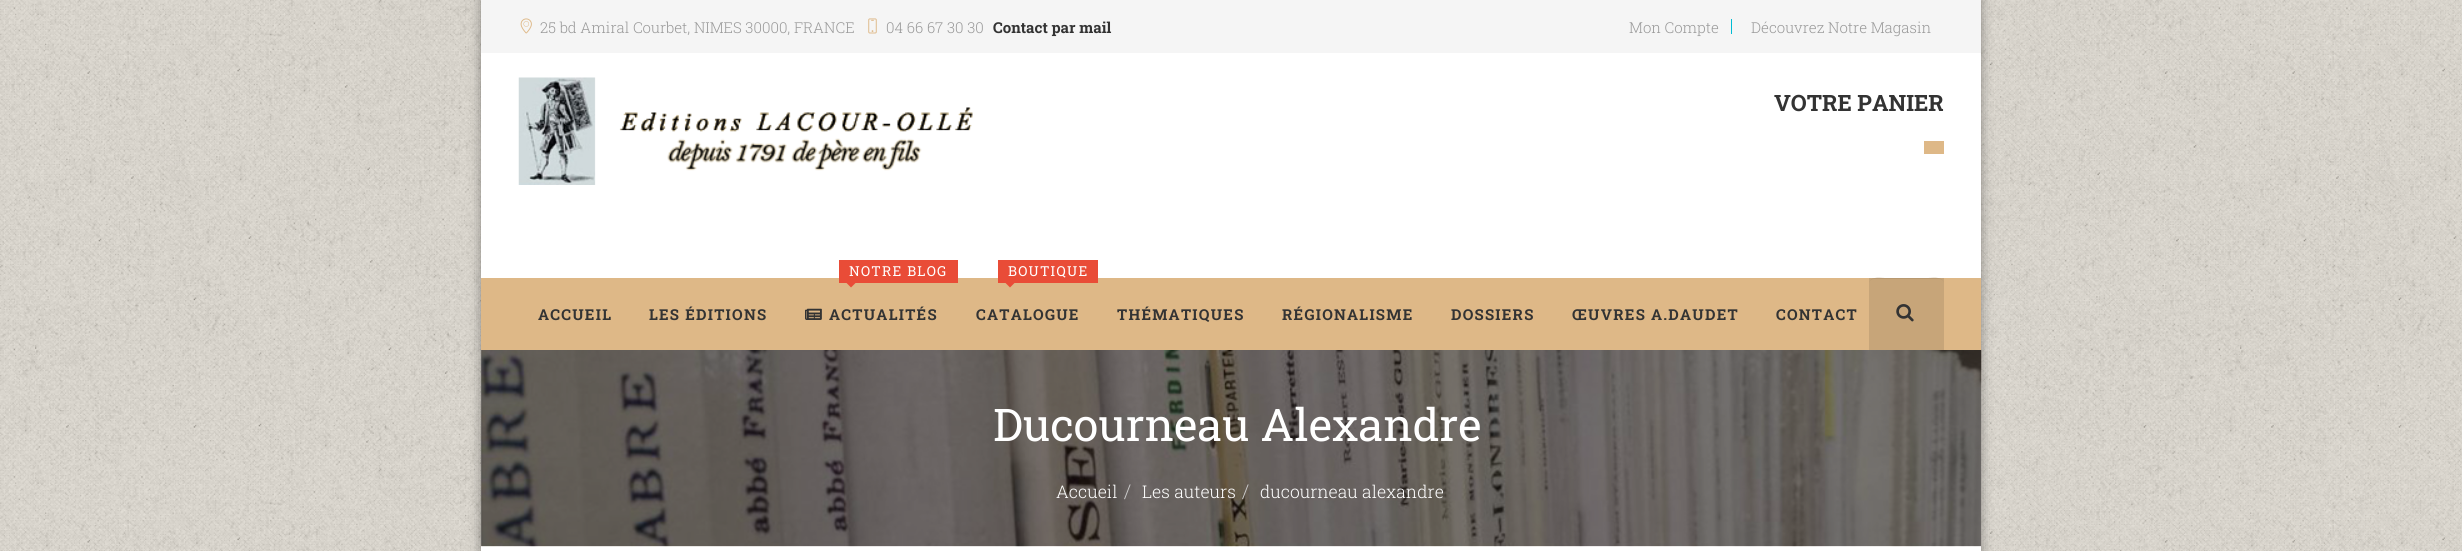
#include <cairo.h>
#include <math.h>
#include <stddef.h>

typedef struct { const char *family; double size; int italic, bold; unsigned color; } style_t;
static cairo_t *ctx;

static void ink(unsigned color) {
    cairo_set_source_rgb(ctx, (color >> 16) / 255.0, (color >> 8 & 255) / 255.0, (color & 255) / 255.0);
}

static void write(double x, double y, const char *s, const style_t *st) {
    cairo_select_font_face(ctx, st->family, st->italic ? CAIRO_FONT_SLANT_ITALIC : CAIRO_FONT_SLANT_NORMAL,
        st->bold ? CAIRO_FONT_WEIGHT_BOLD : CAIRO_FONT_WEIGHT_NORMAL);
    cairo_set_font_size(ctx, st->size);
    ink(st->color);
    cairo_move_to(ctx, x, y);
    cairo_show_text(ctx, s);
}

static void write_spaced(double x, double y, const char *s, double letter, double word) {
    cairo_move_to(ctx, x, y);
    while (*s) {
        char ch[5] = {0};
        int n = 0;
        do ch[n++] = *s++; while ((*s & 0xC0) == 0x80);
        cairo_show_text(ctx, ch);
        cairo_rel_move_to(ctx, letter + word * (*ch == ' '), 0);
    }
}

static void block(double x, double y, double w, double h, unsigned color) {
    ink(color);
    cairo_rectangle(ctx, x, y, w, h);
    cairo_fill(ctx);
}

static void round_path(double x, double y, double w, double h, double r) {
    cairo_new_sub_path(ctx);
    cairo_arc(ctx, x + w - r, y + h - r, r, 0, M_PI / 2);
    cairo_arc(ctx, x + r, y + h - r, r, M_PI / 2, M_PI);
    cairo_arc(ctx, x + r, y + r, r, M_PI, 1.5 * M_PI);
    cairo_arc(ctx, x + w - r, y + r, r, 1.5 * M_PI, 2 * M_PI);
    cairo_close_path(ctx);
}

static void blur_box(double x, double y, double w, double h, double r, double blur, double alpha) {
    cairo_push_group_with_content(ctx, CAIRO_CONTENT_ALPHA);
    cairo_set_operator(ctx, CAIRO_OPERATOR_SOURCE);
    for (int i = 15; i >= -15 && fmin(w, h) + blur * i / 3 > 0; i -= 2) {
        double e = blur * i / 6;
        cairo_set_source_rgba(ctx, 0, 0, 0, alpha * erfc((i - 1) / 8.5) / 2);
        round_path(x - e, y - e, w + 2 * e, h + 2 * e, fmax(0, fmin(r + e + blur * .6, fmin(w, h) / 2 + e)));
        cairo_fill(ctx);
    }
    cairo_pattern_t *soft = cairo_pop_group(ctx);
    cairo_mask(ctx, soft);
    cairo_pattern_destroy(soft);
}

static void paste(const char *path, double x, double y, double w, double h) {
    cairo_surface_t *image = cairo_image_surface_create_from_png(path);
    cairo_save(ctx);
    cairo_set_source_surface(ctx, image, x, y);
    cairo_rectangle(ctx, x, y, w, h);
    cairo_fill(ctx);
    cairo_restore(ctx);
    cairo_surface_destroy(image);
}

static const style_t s1 = {"Roboto Slab Light", 15, 0, 0, 0x999999};
static const style_t s2 = {"Roboto Slab", 15, 0, 1, 0x333333};
static const style_t s3 = {"Roboto Slab", 22.5, 0, 1, 0x333333};
static const style_t s4 = {"Roboto Slab", 45, 0, 0, 0xffffff};
static const style_t s5 = {"Roboto Slab Light", 17.5, 0, 0, 0xffffff};
static const style_t s6 = {"Roboto Slab Light", 19, 0, 0, 0xcccccc};

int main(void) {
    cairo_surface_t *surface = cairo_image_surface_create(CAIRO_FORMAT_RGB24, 2462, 551);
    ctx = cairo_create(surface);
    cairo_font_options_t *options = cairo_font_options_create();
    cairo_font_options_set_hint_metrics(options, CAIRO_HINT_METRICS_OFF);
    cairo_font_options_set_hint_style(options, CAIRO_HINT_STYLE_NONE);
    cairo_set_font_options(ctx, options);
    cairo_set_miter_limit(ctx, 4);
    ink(0xffffff);
    cairo_paint(ctx);
    paste("pic1.png", 0, 0, 2462, 551);
    ink(0x000000);
    blur_box(481, 0, 1500, 551, 0, 6, 0.2);
    blur_box(481, 0, 1500, 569, 0, 6, 0.2);
    block(481, 53, 1500, 498, 0xffffff);
    block(481, 0, 1500, 53, 0xf5f5f5);
    paste("pic2.png", 520, 18, 12, 16);
    write(540, 33, "25 bd Amiral Courbet, NIMES 30000, FRANCE", &s1);
    paste("pic3.png", 868, 18, 9, 16);
    write(886, 33, "04 66 67 30 30", &s1);
    write(993, 33, "Contact par mail", &s2);
    block(1731, 19, 1, 15, 0x00bcd4);
    write(1629, 33, "Mon Compte", &s1);
    write(1751, 33, "Découvrez Notre Magasin", &s1);
    paste("pic4.png", 518, 77, 455, 108);
    write(1774, 111, "VOTRE PANIER", &s3);
    block(1924, 141, 20, 13, 0xdeb887);
    block(481, 278, 1500, 72, 0xdeb887);
    cairo_set_font_size(ctx, 15);
    ink(0x333333);
    write_spaced(538, 320, "ACCUEIL", 1.25, 0);
    write_spaced(649, 320, "LES ÉDITIONS", 1.25, 0);
    block(839, 260, 119, 23, 0xe94c37);
    cairo_select_font_face(ctx, "Roboto Slab", CAIRO_FONT_SLANT_NORMAL, CAIRO_FONT_WEIGHT_NORMAL);
    cairo_set_font_size(ctx, 13.75);
    ink(0xffffff);
    write_spaced(849, 276, "NOTRE BLOG", 1.25, 0);
    ink(0xe94c37);
    cairo_new_path(ctx);
    cairo_move_to(ctx, 846, 282.5);
    cairo_line_to(ctx, 856, 282.5);
    cairo_line_to(ctx, 851, 287.5);
    cairo_close_path(ctx);
    cairo_fill(ctx);
    paste("pic5.png", 805, 308, 17, 12);
    cairo_select_font_face(ctx, "Roboto Slab", CAIRO_FONT_SLANT_NORMAL, CAIRO_FONT_WEIGHT_BOLD);
    cairo_set_font_size(ctx, 15);
    ink(0x333333);
    write_spaced(829, 320, "ACTUALITÉS", 1.25, 0);
    block(998, 260, 100, 23, 0xe94c37);
    cairo_select_font_face(ctx, "Roboto Slab", CAIRO_FONT_SLANT_NORMAL, CAIRO_FONT_WEIGHT_NORMAL);
    cairo_set_font_size(ctx, 13.75);
    ink(0xffffff);
    write_spaced(1008, 276, "BOUTIQUE", 1.25, 0);
    ink(0xe94c37);
    cairo_new_path(ctx);
    cairo_move_to(ctx, 1005, 282.5);
    cairo_line_to(ctx, 1015, 282.5);
    cairo_line_to(ctx, 1010, 287.5);
    cairo_close_path(ctx);
    cairo_fill(ctx);
    cairo_select_font_face(ctx, "Roboto Slab", CAIRO_FONT_SLANT_NORMAL, CAIRO_FONT_WEIGHT_BOLD);
    cairo_set_font_size(ctx, 15);
    ink(0x333333);
    write_spaced(976, 320, "CATALOGUE", 1.25, 0);
    write_spaced(1117, 320, "THÉMATIQUES", 1.25, 0);
    write_spaced(1282, 320, "RÉGIONALISME", 1.25, 0);
    write_spaced(1451, 320, "DOSSIERS", 1.25, 0);
    write_spaced(1572, 320, "ŒUVRES A.DAUDET", 1.25, 0);
    write_spaced(1776, 320, "CONTACT", 1.25, 0);
    block(1869, 278, 75, 72, 0xc7a579);
    ink(0xb89970);
    cairo_new_path(ctx);
    cairo_move_to(ctx, 1874, 279);
    cairo_line_to(ctx, 1939, 279);
    cairo_curve_to(ctx, 1942, 279, 1944, 281, 1944, 284);
    cairo_curve_to(ctx, 1944, 276, 1934, 278, 1928, 278);
    cairo_line_to(ctx, 1885, 278);
    cairo_curve_to(ctx, 1879, 278, 1869, 276, 1869, 284);
    cairo_curve_to(ctx, 1869, 281, 1871, 279, 1874, 279);
    cairo_close_path(ctx);
    cairo_fill(ctx);
    paste("pic6.png", 1896, 304, 18, 18);
    paste("pic7.png", 481, 350, 1501, 197);
    cairo_set_source_rgba(ctx, 0, 0, 0, 0.4);
    cairo_rectangle(ctx, 481, 350, 1500, 196);
    cairo_fill(ctx);
    write(993, 441, "Ducourneau Alexandre", &s4);
    write(1056, 498, "Accueil", &s5);
    write(1124, 498, "/", &s6);
    write(1142, 498, "Les auteurs", &s5);
    write(1242, 498, "/", &s6);
    write(1260, 498, "ducourneau alexandre", &s5);
    cairo_surface_write_to_png(surface, "screenshot.png");
    cairo_font_options_destroy(options);
    cairo_destroy(ctx);
    cairo_surface_destroy(surface);
    return 0;
}
